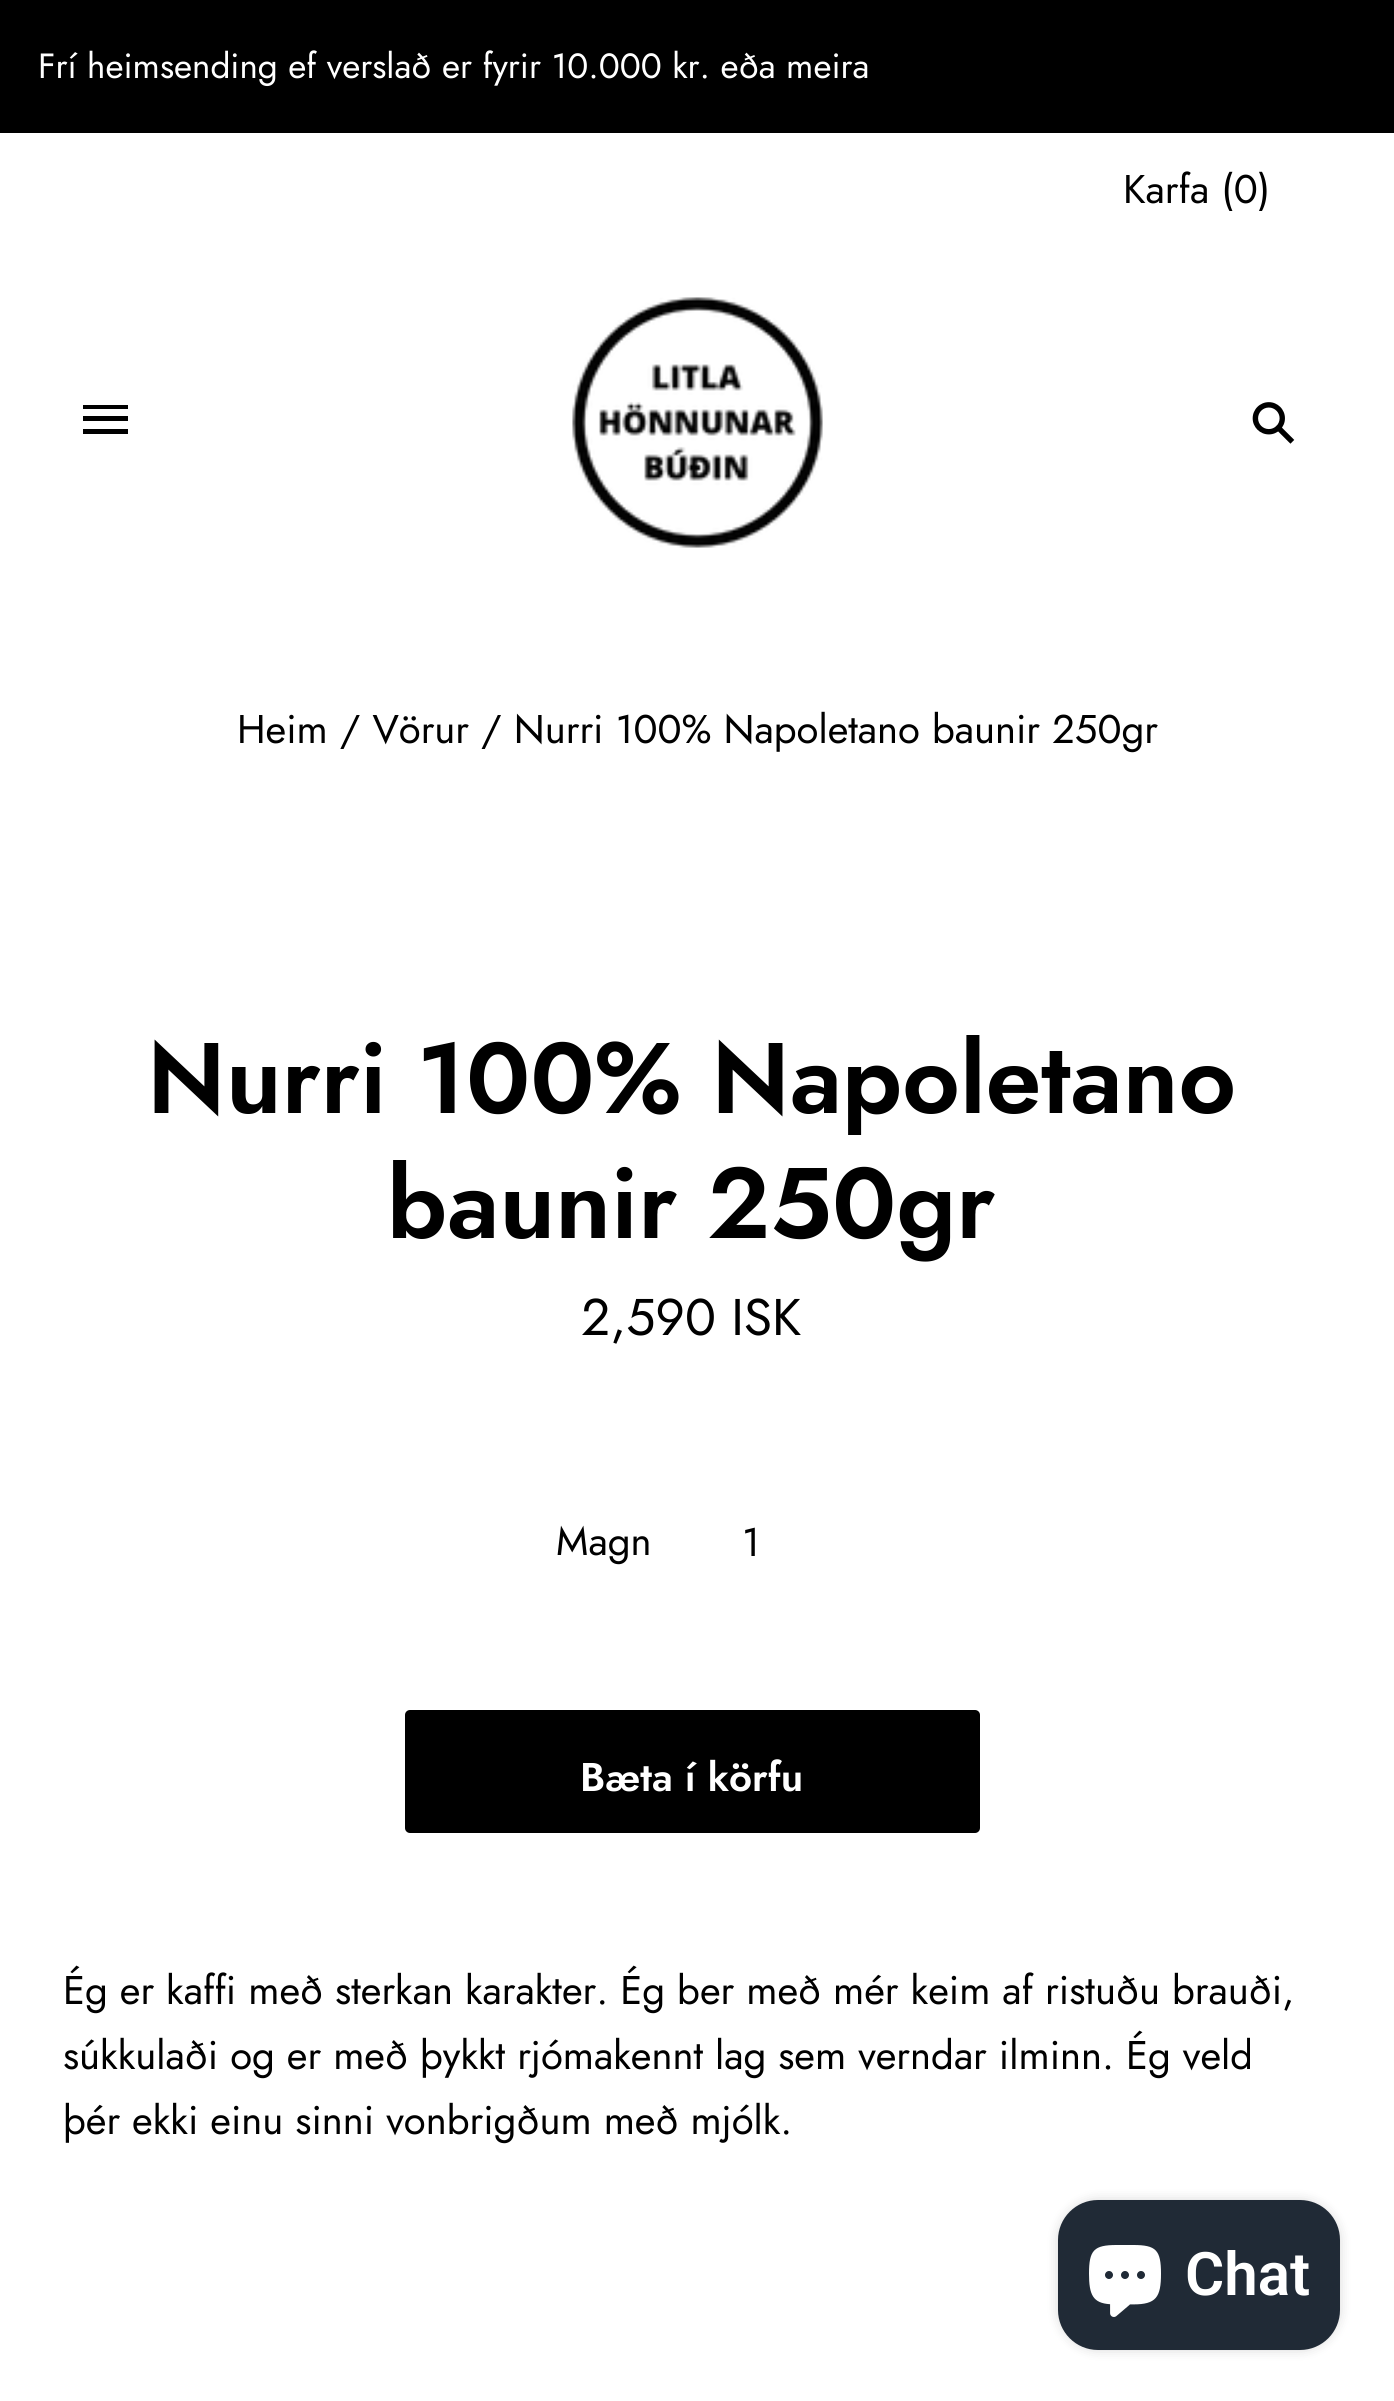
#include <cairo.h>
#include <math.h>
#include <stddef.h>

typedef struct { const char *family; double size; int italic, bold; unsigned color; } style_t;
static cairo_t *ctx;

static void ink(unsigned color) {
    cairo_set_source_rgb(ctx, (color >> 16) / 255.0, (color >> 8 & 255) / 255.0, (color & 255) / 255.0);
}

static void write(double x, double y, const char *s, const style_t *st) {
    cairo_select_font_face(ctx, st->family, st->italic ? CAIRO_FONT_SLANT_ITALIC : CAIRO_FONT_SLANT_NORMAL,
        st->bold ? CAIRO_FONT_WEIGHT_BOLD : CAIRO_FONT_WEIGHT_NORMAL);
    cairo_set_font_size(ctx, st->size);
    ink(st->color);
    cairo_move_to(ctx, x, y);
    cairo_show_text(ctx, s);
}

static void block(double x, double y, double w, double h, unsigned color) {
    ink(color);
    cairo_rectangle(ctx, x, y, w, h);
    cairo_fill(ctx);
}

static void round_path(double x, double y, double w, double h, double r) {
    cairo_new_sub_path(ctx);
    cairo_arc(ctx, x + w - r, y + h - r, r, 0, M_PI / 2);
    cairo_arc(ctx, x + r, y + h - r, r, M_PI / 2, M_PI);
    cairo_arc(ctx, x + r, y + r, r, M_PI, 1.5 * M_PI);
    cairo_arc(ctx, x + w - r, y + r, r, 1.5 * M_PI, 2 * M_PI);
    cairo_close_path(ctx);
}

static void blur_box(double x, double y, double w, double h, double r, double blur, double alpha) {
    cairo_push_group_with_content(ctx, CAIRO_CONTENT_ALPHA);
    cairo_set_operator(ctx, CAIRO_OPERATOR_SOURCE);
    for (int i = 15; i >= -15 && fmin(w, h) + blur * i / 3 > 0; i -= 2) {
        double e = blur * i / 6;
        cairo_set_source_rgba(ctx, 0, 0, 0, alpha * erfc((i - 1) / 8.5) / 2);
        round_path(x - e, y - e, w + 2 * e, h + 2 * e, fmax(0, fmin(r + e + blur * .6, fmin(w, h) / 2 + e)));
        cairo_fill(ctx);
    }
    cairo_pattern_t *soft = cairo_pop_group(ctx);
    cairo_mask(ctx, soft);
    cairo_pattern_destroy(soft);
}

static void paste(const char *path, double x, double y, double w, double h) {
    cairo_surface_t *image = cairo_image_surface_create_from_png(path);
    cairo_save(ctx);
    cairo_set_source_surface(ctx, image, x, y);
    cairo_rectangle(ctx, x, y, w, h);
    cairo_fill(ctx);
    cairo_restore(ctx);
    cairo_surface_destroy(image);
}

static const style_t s1 = {"Jost", 35, 0, 0, 0xffffff};
static const style_t s2 = {"Jost", 40, 0, 0, 0x000000};
static const style_t s3 = {"Jost SemiBold", 100, 0, 0, 0x000000};
static const style_t s4 = {"Jost", 51.5, 0, 0, 0x000000};
static const style_t s5 = {"Jost SemiBold", 40, 0, 0, 0xffffff};
static const style_t s6 = {"Roboto SemiBold", 60, 0, 0, 0xffffff};

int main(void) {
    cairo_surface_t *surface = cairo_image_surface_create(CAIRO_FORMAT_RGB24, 1394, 2401);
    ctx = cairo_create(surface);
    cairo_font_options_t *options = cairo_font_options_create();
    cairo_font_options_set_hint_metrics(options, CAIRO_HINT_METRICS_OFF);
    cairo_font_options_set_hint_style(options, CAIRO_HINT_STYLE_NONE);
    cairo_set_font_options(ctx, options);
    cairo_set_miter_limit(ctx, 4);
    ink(0xffffff);
    cairo_paint(ctx);
    block(0, 0, 1394, 133, 0x000000);
    write(38, 78, "Frí heimsending ef verslað er fyrir 10.000 kr. eða meira", &s1);
    write(1123, 203, "Karfa (0)", &s2);
    cairo_save(ctx);
    cairo_rectangle(ctx, 83, 405, 45, 30);
    cairo_clip(ctx);
    cairo_set_fill_rule(ctx, CAIRO_FILL_RULE_EVEN_ODD);
    cairo_new_path(ctx);
    cairo_move_to(ctx, 82, 404);
    cairo_line_to(ctx, 128, 404);
    cairo_line_to(ctx, 128, 409);
    cairo_line_to(ctx, 82, 409);
    cairo_close_path(ctx);
    cairo_move_to(ctx, 82, 416);
    cairo_line_to(ctx, 128, 416);
    cairo_line_to(ctx, 128, 421);
    cairo_line_to(ctx, 82, 421);
    cairo_close_path(ctx);
    cairo_move_to(ctx, 82, 429);
    cairo_line_to(ctx, 128, 429);
    cairo_line_to(ctx, 128, 434);
    cairo_line_to(ctx, 82, 434);
    cairo_close_path(ctx);
    cairo_fill(ctx);
    cairo_restore(ctx);
    paste("pic1.png", 572, 297, 251, 251);
    paste("pic2.png", 1252, 402, 43, 42);
    write(237, 743, "Heim / Vörur / Nurri 100% Napoletano baunir 250gr", &s2);
    write(147, 1113, "Nurri 100% Napoletano", &s3);
    write(387, 1238, "baunir 250gr", &s3);
    write(581, 1335, "2,590 ISK", &s4);
    write(556, 1555, "Magn", &s2);
    write(742, 1556, "1", &s2);
    round_path(405, 1710, 575, 123, 5);
    cairo_fill(ctx);
    write(580, 1791, "Bæta í körfu", &s5);
    write(63, 2004, "Ég er kaffi með sterkan karakter. Ég ber með mér keim af ristuðu brauði,", &s2);
    write(63, 2069, "súkkulaði og er með þykkt rjómakennt lag sem verndar ilminn. Ég veld", &s2);
    write(63, 2134, "þér ekki einu sinni vonbrigðum með mjólk.", &s2);
    ink(0x000000);
    blur_box(1058, 2200, 282, 150, 40, 6, 0.15);
    ink(0x202a36);
    round_path(1058, 2200, 282, 150, 40);
    cairo_fill(ctx);
    paste("pic3.png", 1089, 2245, 72, 72);
    write(1185, 2295, "Chat", &s6);
    cairo_surface_write_to_png(surface, "screenshot.png");
    cairo_font_options_destroy(options);
    cairo_destroy(ctx);
    cairo_surface_destroy(surface);
    return 0;
}
